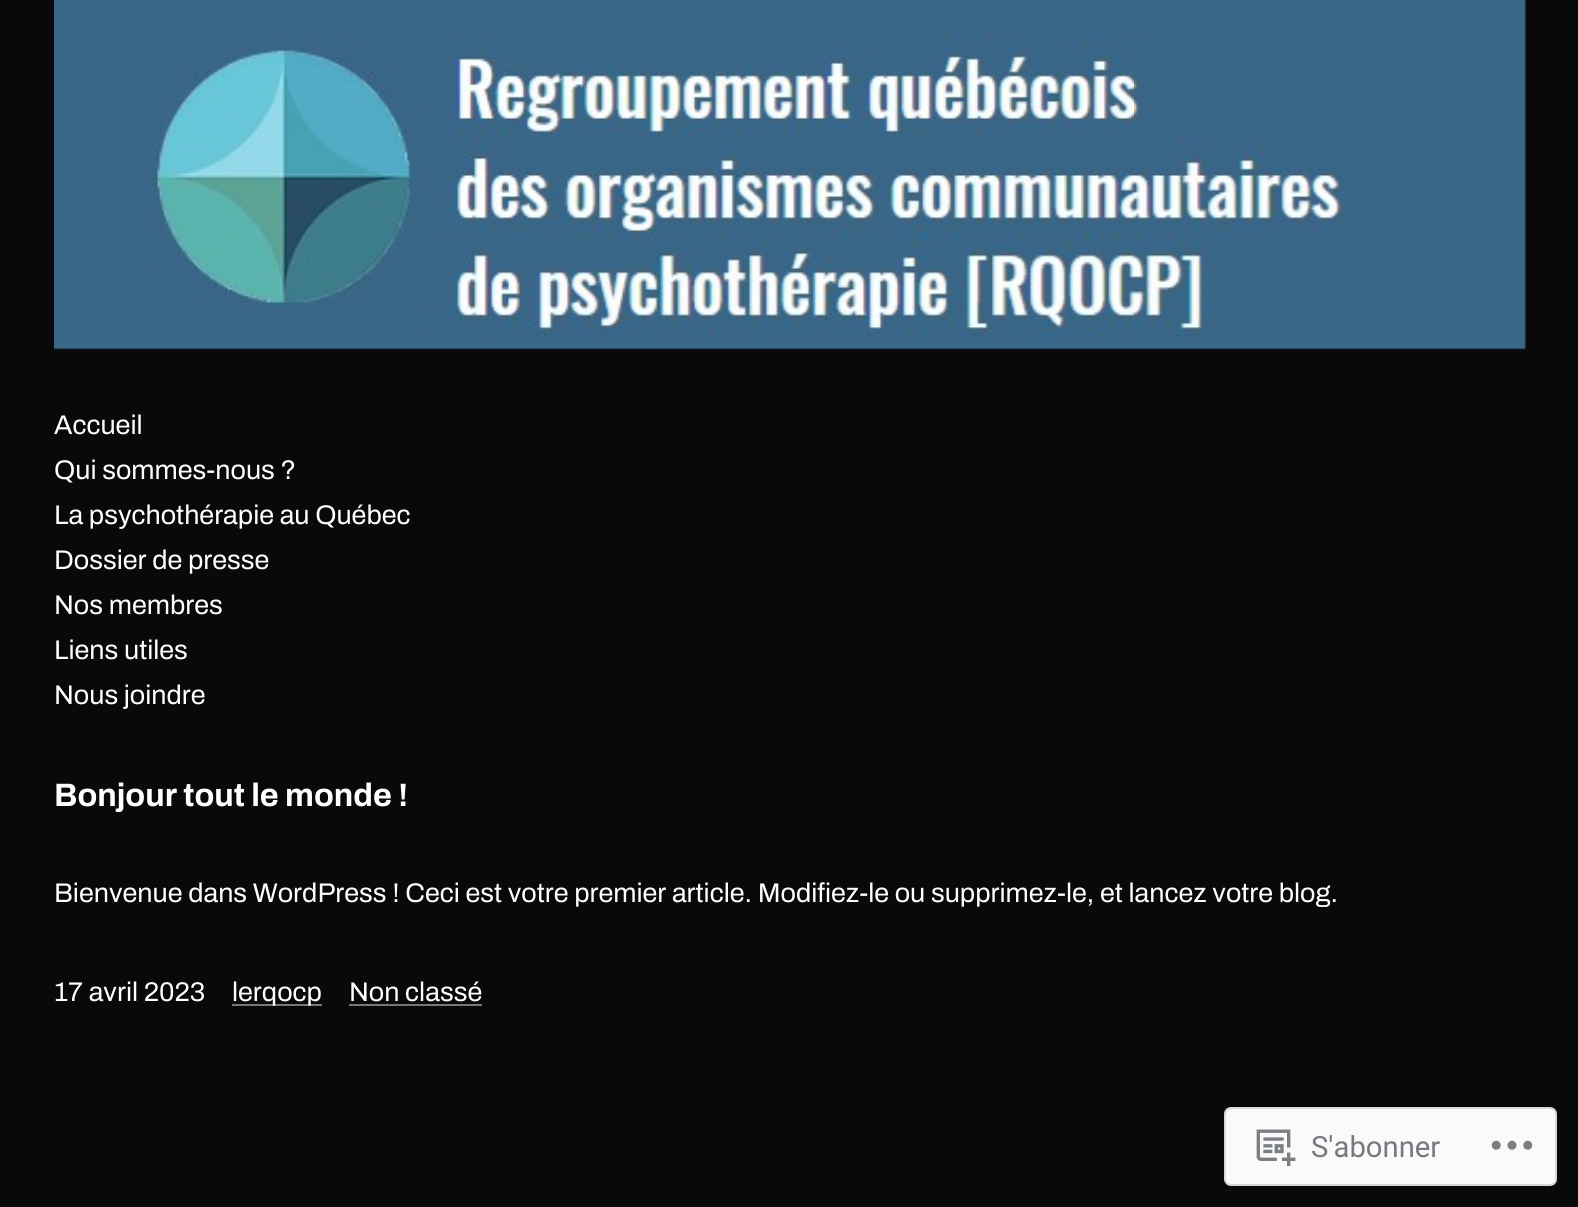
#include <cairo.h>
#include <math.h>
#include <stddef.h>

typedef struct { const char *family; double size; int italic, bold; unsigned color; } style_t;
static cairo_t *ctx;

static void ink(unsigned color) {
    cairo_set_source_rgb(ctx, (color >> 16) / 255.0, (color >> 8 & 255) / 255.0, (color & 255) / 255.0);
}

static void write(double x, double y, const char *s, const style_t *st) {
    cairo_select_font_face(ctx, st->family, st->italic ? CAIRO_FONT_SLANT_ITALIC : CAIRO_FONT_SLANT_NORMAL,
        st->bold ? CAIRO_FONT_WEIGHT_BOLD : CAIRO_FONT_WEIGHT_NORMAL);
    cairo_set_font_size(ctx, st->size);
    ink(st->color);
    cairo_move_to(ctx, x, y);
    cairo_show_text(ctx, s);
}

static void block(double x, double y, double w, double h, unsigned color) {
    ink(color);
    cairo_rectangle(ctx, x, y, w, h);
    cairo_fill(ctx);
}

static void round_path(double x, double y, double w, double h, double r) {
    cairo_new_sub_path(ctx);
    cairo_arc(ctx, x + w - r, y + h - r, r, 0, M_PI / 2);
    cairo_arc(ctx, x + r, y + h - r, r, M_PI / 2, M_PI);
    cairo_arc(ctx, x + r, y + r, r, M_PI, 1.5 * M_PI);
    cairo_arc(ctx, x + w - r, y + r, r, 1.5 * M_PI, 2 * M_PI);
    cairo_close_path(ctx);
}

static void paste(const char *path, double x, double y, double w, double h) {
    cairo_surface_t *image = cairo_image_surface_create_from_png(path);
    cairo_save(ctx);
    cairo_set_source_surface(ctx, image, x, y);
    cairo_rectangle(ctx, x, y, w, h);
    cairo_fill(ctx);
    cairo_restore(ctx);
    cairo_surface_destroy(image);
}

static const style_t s1 = {"Archivo", 27, 0, 0, 0xffffff};
static const style_t s2 = {"Archivo", 32.4, 0, 1, 0xffffff};
static const style_t s3 = {"Roboto", 29.25, 0, 0, 0x767a80};

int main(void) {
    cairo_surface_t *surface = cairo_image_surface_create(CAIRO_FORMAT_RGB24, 1578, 1207);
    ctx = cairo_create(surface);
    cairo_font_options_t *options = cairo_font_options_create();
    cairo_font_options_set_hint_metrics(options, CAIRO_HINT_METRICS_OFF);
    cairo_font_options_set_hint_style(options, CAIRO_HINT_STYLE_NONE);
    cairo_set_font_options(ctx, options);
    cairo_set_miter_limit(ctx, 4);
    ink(0x090909);
    cairo_paint(ctx);
    paste("pic1.png", 54, 0, 1472, 350);
    write(54, 434, "Accueil", &s1);
    write(54, 479, "Qui sommes-nous ?", &s1);
    write(54, 524, "La psychothérapie au Québec", &s1);
    write(54, 569, "Dossier de presse", &s1);
    write(54, 614, "Nos membres", &s1);
    write(54, 659, "Liens utiles", &s1);
    write(54, 704, "Nous joindre", &s1);
    write(54, 806, "Bonjour tout le monde !", &s2);
    write(54, 902, "Bienvenue dans WordPress ! Ceci est votre premier article. Modifiez-le ou supprimez-le, et lancez votre blog.", &s1);
    write(54, 1001, "17 avril 2023", &s1);
    block(232, 1004, 90, 2, 0x787878);
    write(232, 1001, "lerqocp", &s1);
    write(349, 1001, "Non classé", &s1);
    block(349, 1004, 133, 2, 0x787878);
    ink(0xfafafa);
    round_path(1225, 1108, 331, 77, 6);
    cairo_fill_preserve(ctx);
    ink(0xd8d8da);
    cairo_stroke(ctx);
    paste("pic2.png", 1256, 1129, 40, 38);
    write(1311, 1157, "S'abonner", &s3);
    paste("pic3.png", 1491, 1140, 42, 10);
    cairo_surface_write_to_png(surface, "screenshot.png");
    cairo_font_options_destroy(options);
    cairo_destroy(ctx);
    cairo_surface_destroy(surface);
    return 0;
}
